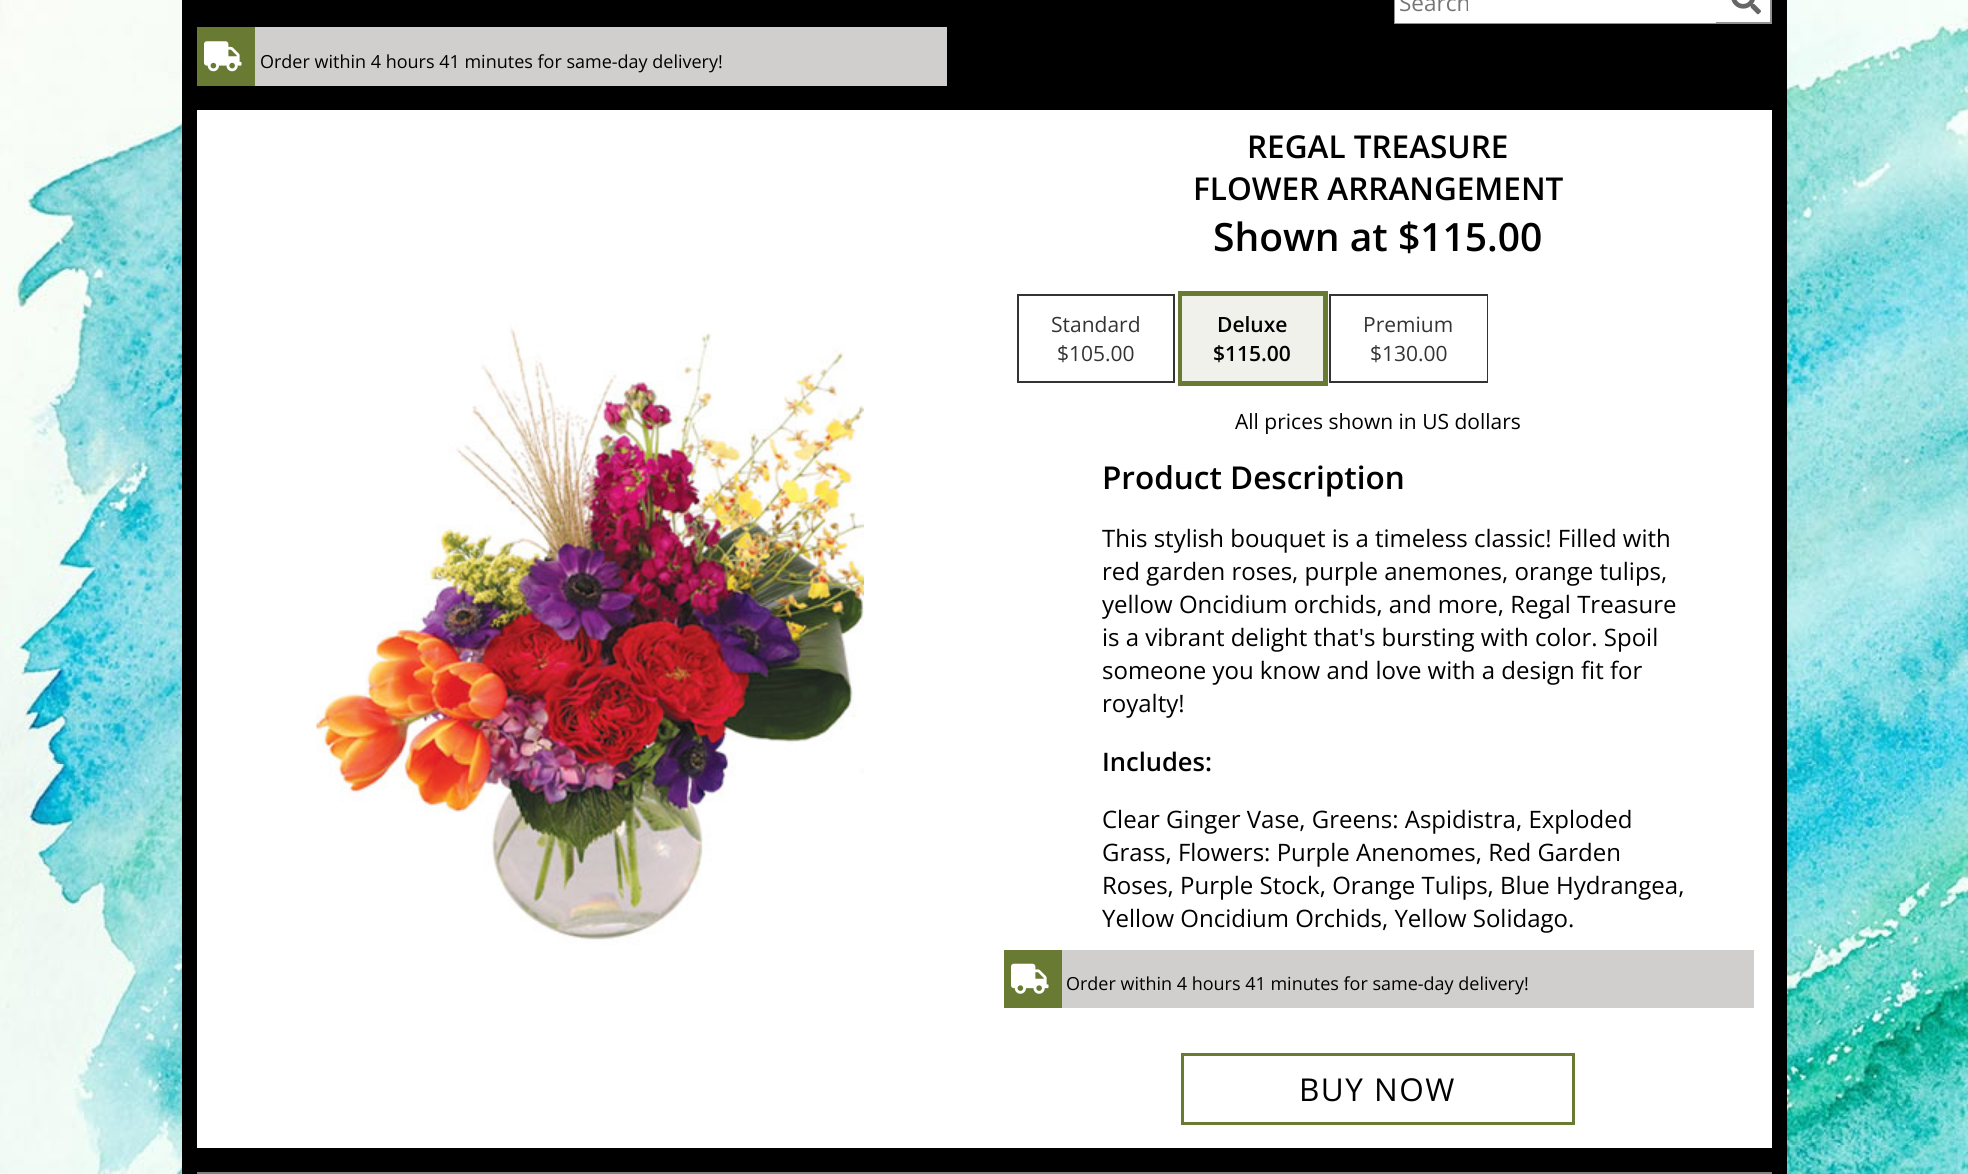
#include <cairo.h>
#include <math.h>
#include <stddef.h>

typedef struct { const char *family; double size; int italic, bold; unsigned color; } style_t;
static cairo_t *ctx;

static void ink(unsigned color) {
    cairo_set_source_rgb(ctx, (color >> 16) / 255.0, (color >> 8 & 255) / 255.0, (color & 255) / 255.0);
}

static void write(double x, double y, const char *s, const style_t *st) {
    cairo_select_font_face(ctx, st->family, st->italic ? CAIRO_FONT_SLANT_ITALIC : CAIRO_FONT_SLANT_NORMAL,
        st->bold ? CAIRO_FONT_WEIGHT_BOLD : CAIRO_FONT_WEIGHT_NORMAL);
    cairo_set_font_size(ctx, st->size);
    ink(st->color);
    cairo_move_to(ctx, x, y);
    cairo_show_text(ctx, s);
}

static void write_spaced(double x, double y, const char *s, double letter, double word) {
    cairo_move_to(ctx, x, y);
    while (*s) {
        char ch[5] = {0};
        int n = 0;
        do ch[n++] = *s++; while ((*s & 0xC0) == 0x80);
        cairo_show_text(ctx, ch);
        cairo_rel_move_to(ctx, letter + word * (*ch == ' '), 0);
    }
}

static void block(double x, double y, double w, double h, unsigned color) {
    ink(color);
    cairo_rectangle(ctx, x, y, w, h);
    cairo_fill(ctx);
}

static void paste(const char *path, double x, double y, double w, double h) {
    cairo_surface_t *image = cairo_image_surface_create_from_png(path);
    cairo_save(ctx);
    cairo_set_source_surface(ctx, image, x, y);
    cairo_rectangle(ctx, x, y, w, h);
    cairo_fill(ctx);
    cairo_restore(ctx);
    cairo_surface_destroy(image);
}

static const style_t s1 = {"Open Sans", 22.5, 0, 0, 0x757575};
static const style_t s2 = {"Open Sans", 18, 0, 0, 0x000000};
static const style_t s3 = {"Open Sans SemiBold", 31.5, 0, 0, 0x000000};
static const style_t s4 = {"Open Sans SemiBold", 39, 0, 0, 0x000000};
static const style_t s5 = {"Open Sans", 21, 0, 0, 0x333333};
static const style_t s6 = {"Open Sans SemiBold", 21, 0, 0, 0x000000};
static const style_t s7 = {"Open Sans", 21, 0, 0, 0x000000};
static const style_t s8 = {"Open Sans", 24, 0, 0, 0x000000};
static const style_t s9 = {"Open Sans SemiBold", 25.5, 0, 0, 0x000000};

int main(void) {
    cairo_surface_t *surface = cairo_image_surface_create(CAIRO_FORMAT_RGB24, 1968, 1174);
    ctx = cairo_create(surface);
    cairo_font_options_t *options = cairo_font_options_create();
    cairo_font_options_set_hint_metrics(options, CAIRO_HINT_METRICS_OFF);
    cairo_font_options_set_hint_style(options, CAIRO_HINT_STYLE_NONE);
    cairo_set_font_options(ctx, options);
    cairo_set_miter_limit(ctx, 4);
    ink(0xffffff);
    cairo_paint(ctx);
    paste("pic1.png", 0, 0, 1968, 1174);
    block(182, 0, 1605, 1174, 0x000000);
    block(1716, 0, 54, 22, 0xffffff);
    cairo_rectangle(ctx, 1395, -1, 376, 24);
    ink(0x919191);
    cairo_stroke(ctx);
    block(1395, 0, 321, 23, 0xffffff);
    write(1399, 11, "Search", &s1);
    paste("pic2.png", 1731, 0, 30, 15);
    block(255, 27, 692, 59, 0xd0cfcd);
    block(197, 27, 58, 59, 0x697b33);
    paste("pic3.png", 204, 41, 38, 31);
    write(260, 68, "Order within 4 hours 41 minutes for same-day delivery!", &s2);
    block(197, 110, 1575, 1038, 0xffffff);
    paste("pic4.png", 316, 323, 548, 622);
    write(1247, 158, "REGAL TREASURE", &s3);
    write(1193, 200, "FLOWER ARRANGEMENT", &s3);
    write(1213, 251, "Shown at $115.00", &s4);
    cairo_rectangle(ctx, 1018, 295, 156, 87);
    ink(0x333333);
    cairo_stroke(ctx);
    write(1051, 332, "Standard", &s5);
    write(1057, 361, "$105.00", &s5);
    cairo_rectangle(ctx, 1180.5, 293.5, 145, 90);
    ink(0x697b33);
    cairo_set_line_width(ctx, 5);
    cairo_stroke(ctx);
    block(1182, 296, 141, 85, 0xf0f1ea);
    write(1217, 332, "Deluxe", &s6);
    write(1213, 361, "$115.00", &s6);
    cairo_rectangle(ctx, 1330, 295, 157, 87);
    ink(0x333333);
    cairo_set_line_width(ctx, 2);
    cairo_stroke(ctx);
    block(1486, 296, 1, 85, 0xffffff);
    write(1363, 332, "Premium", &s5);
    write(1370, 361, "$130.00", &s5);
    write(1235, 429, "All prices shown in US dollars", &s7);
    write(1102, 489, "Product Description", &s3);
    write(1102, 547, "This stylish bouquet is a timeless classic! Filled with", &s8);
    write(1102, 580, "red garden roses, purple anemones, orange tulips,", &s8);
    write(1102, 613, "yellow Oncidium orchids, and more, Regal Treasure", &s8);
    write(1102, 646, "is a vibrant delight that's bursting with color. Spoil", &s8);
    write(1102, 679, "someone you know and love with a design fit for", &s8);
    write(1102, 712, "royalty!", &s8);
    write(1102, 771, "Includes:", &s9);
    write(1102, 828, "Clear Ginger Vase, Greens: Aspidistra, Exploded", &s8);
    write(1102, 861, "Grass, Flowers: Purple Anenomes, Red Garden", &s8);
    write(1102, 894, "Roses, Purple Stock, Orange Tulips, Blue Hydrangea,", &s8);
    write(1102, 927, "Yellow Oncidium Orchids, Yellow Solidago.", &s8);
    block(1062, 950, 692, 58, 0xd0cfcd);
    block(1004, 950, 58, 58, 0x697b33);
    paste("pic5.png", 1011, 963, 38, 31);
    write(1066, 990, "Order within 4 hours 41 minutes for same-day delivery!", &s2);
    cairo_rectangle(ctx, 1182.5, 1054.5, 391, 69);
    ink(0x697b33);
    cairo_set_line_width(ctx, 3);
    cairo_stroke(ctx);
    cairo_set_font_size(ctx, 31.5);
    ink(0x000000);
    write_spaced(1299, 1101, "BUY NOW", 1.5, 0);
    block(197, 1172, 1575, 2, 0x808080);
    cairo_surface_write_to_png(surface, "screenshot.png");
    cairo_font_options_destroy(options);
    cairo_destroy(ctx);
    cairo_surface_destroy(surface);
    return 0;
}
